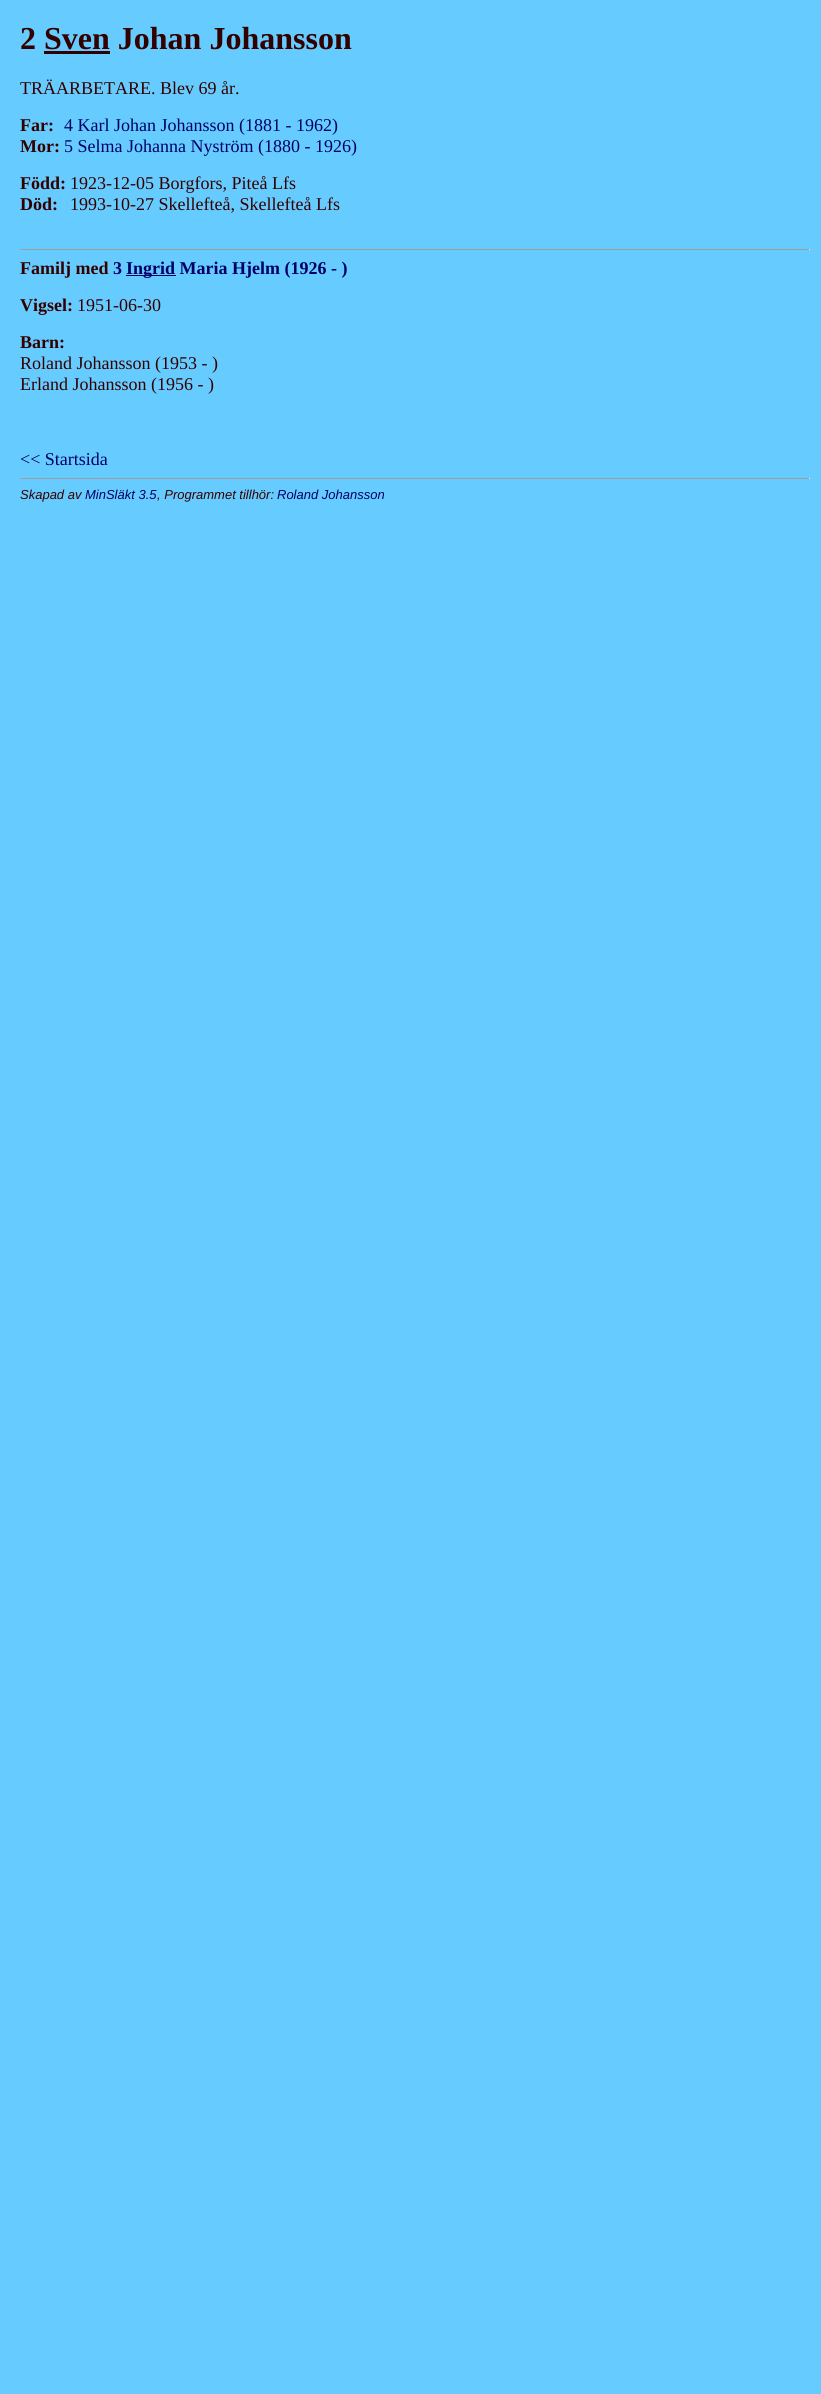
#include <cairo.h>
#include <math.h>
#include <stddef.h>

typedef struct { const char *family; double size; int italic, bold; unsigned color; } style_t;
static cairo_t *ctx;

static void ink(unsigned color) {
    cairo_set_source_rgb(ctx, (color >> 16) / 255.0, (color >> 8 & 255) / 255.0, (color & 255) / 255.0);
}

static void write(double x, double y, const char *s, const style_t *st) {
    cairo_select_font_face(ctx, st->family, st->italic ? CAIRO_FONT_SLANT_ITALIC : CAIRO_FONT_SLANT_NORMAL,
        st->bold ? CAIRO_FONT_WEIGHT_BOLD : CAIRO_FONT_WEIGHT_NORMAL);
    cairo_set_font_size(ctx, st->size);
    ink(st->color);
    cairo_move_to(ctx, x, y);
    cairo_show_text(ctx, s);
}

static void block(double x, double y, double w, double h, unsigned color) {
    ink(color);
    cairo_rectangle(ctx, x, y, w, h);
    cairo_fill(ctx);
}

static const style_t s1 = {"Liberation Serif", 32, 0, 1, 0x330000};
static const style_t s2 = {"Liberation Serif", 18, 0, 0, 0x330000};
static const style_t s3 = {"Liberation Serif", 18, 0, 1, 0x330000};
static const style_t s4 = {"Liberation Serif", 18, 0, 0, 0x000066};
static const style_t s5 = {"Liberation Serif", 18, 0, 1, 0x000066};
static const style_t s6 = {"Liberation Sans", 13, 1, 0, 0x330000};
static const style_t s7 = {"Liberation Sans", 13, 1, 0, 0x000066};

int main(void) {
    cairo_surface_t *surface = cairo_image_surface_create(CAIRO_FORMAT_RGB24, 821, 2394);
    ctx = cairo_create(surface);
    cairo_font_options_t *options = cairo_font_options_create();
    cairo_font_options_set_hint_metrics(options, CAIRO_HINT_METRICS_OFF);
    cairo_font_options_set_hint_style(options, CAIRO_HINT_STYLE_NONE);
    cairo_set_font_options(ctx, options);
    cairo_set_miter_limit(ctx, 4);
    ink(0x66ccff);
    cairo_paint(ctx);
    write(20, 49, "2 Sven Johan Johansson", &s1);
    block(44, 51, 66, 3, 0x330000);
    write(20, 94, "TRÄARBETARE. Blev 69 år.", &s2);
    write(20, 131, "Far:", &s3);
    write(64, 131, "4 Karl Johan Johansson (1881 - 1962)", &s4);
    write(20, 152, "Mor:", &s3);
    write(64, 152, "5 Selma Johanna Nyström (1880 - 1926)", &s4);
    write(20, 189, "Född:", &s3);
    write(70, 189, "1923-12-05 Borgfors, Piteå Lfs", &s2);
    write(20, 210, "Död:", &s3);
    write(70, 210, "1993-10-27 Skellefteå, Skellefteå Lfs", &s2);
    block(20, 249, 790, 1, 0x9f9f9f);
    block(809, 249, 1, 1, 0xeeeeee);
    write(20, 274, "Familj med", &s3);
    write(113, 274, "3", &s5);
    block(126, 275, 50, 1, 0x000066);
    write(126, 274, "Ingrid Maria Hjelm (1926 - )", &s5);
    write(20, 311, "Vigsel:", &s3);
    write(77, 311, "1951-06-30", &s2);
    write(20, 348, "Barn:", &s3);
    write(20, 369, "Roland Johansson (1953 - )", &s2);
    write(20, 390, "Erland Johansson (1956 - )", &s2);
    write(20, 465, "<< Startsida", &s4);
    block(20, 478, 790, 1, 0x9f9f9f);
    block(809, 478, 1, 1, 0xeeeeee);
    write(20, 499, "Skapad av", &s6);
    write(85, 499, "MinSläkt 3.5", &s7);
    write(157, 499, ", Programmet tillhör:", &s6);
    write(277, 499, "Roland Johansson", &s7);
    cairo_surface_write_to_png(surface, "screenshot.png");
    cairo_font_options_destroy(options);
    cairo_destroy(ctx);
    cairo_surface_destroy(surface);
    return 0;
}
